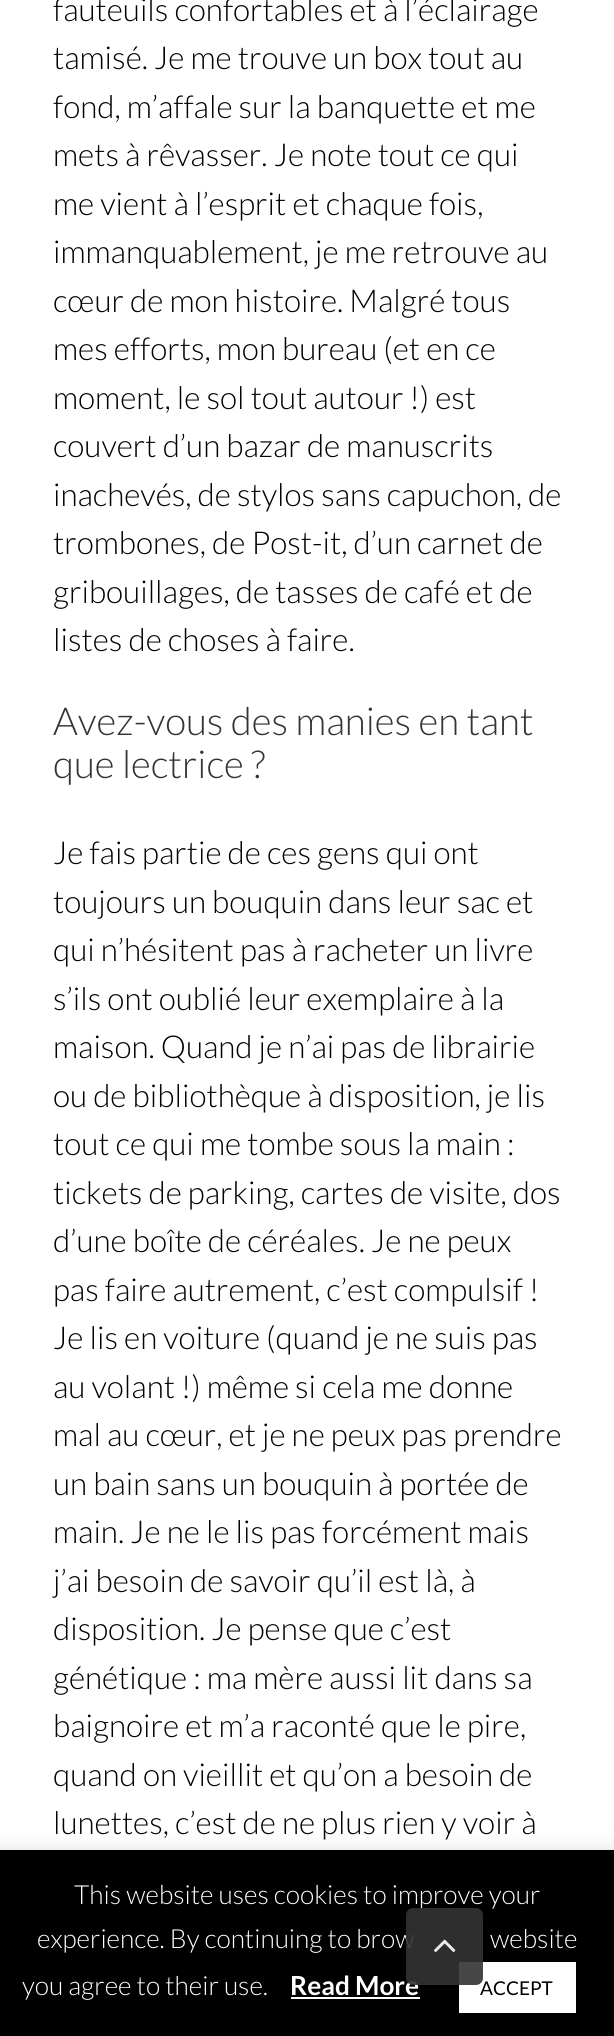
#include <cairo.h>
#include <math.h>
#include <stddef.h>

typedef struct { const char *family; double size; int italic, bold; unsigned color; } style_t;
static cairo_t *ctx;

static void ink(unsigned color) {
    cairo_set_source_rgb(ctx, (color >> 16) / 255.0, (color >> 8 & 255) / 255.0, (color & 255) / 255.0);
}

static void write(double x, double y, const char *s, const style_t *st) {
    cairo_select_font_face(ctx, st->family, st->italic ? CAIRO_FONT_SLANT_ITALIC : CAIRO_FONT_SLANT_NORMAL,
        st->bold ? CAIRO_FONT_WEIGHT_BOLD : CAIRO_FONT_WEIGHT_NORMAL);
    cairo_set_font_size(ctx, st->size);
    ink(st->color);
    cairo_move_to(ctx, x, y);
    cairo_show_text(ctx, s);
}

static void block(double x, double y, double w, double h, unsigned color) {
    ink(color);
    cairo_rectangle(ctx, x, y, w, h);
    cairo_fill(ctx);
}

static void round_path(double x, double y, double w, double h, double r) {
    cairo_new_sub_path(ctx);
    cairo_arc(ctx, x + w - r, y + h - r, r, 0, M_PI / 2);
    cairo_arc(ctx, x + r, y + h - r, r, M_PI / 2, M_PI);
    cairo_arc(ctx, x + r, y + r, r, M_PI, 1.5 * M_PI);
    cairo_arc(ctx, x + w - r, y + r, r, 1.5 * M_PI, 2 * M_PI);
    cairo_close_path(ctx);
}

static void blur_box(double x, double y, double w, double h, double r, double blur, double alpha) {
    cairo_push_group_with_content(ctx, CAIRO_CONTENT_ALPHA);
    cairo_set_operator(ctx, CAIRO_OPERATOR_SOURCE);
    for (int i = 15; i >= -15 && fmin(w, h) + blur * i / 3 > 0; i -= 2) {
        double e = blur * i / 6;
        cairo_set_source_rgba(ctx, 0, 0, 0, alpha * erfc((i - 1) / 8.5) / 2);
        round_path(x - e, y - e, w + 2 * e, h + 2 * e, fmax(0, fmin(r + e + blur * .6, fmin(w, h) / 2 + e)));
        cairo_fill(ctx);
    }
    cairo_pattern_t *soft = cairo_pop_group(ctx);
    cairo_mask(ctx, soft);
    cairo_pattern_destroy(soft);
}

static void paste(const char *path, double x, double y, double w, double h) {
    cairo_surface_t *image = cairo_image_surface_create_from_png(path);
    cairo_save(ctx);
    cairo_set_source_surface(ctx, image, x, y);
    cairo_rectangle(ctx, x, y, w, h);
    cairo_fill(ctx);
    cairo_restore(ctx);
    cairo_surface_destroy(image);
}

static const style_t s1 = {"Lato Light", 31.5, 0, 0, 0x000000};
static const style_t s2 = {"Lato Light", 38.5, 0, 0, 0x333333};
static const style_t s3 = {"Lato Light", 26.25, 0, 0, 0xffffff};
static const style_t s4 = {"Lato", 26.25, 0, 1, 0xffffff};
static const style_t s5 = {"Lato", 19, 0, 0, 0x000000};

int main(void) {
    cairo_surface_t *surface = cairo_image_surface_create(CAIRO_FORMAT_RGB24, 614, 2036);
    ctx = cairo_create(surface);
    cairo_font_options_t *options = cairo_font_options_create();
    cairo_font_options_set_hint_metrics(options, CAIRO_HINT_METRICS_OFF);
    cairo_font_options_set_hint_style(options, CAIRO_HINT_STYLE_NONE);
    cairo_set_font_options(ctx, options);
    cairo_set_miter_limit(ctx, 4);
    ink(0xffffff);
    cairo_paint(ctx);
    write(53, 21, "fauteuils confortables et à l’éclairage", &s1);
    write(53, 69, "tamisé. Je me trouve un box tout au", &s1);
    write(53, 118, "fond, m’affale sur la banquette et me", &s1);
    write(53, 166, "mets à rêvasser. Je note tout ce qui", &s1);
    write(53, 215, "me vient à l’esprit et chaque fois,", &s1);
    write(53, 263, "immanquablement, je me retrouve au", &s1);
    write(53, 312, "cœur de mon histoire. Malgré tous", &s1);
    write(53, 360, "mes efforts, mon bureau (et en ce", &s1);
    write(53, 409, "moment, le sol tout autour !) est", &s1);
    write(53, 457, "couvert d’un bazar de manuscrits", &s1);
    write(53, 506, "inachevés, de stylos sans capuchon, de", &s1);
    write(53, 554, "trombones, de Post-it, d’un carnet de", &s1);
    write(53, 603, "gribouillages, de tasses de café et de", &s1);
    write(53, 651, "listes de choses à faire.", &s1);
    write(53, 735, "Avez-vous des manies en tant", &s2);
    write(53, 778, "que lectrice ?", &s2);
    write(53, 864, "Je fais partie de ces gens qui ont", &s1);
    write(53, 913, "toujours un bouquin dans leur sac et", &s1);
    write(53, 961, "qui n’hésitent pas à racheter un livre", &s1);
    write(53, 1010, "s’ils ont oublié leur exemplaire à la", &s1);
    write(53, 1058, "maison. Quand je n’ai pas de librairie", &s1);
    write(53, 1107, "ou de bibliothèque à disposition, je lis", &s1);
    write(53, 1155, "tout ce qui me tombe sous la main :", &s1);
    write(53, 1204, "tickets de parking, cartes de visite, dos", &s1);
    write(53, 1252, "d’une boîte de céréales. Je ne peux", &s1);
    write(53, 1301, "pas faire autrement, c’est compulsif !", &s1);
    write(53, 1349, "Je lis en voiture (quand je ne suis pas", &s1);
    write(53, 1398, "au volant !) même si cela me donne", &s1);
    write(53, 1446, "mal au cœur, et je ne peux pas prendre", &s1);
    write(53, 1495, "un bain sans un bouquin à portée de", &s1);
    write(53, 1543, "main. Je ne le lis pas forcément mais", &s1);
    write(53, 1592, "j’ai besoin de savoir qu’il est là, à", &s1);
    write(53, 1640, "disposition. Je pense que c’est", &s1);
    write(53, 1689, "génétique : ma mère aussi lit dans sa", &s1);
    write(53, 1737, "baignoire et m’a raconté que le pire,", &s1);
    write(53, 1786, "quand on vieillit et qu’on a besoin de", &s1);
    write(53, 1834, "lunettes, c’est de ne plus rien y voir à", &s1);
    ink(0xacabab);
    blur_box(0, 1848, 614, 187, 0, 9, 0.3);
    block(0, 1850, 614, 186, 0x000000);
    write(74, 1904, "This website uses cookies to improve your", &s3);
    write(37, 1948, "experience. By continuing to brow", &s3);
    write(490, 1948, "website", &s3);
    write(22, 1995, "you agree to their use.", &s3);
    write(290, 1995, "Read More", &s4);
    block(291, 1997, 129, 2, 0xffffff);
    block(459, 1962, 117, 51, 0xffffff);
    write(480, 1995, "ACCEPT", &s5);
    cairo_set_source_rgba(ctx, 0.2, 0.2, 0.2, 0.9);
    round_path(406, 1908, 77, 77, 7);
    cairo_fill(ctx);
    paste("pic1.png", 434, 1939, 22, 14);
    cairo_surface_write_to_png(surface, "screenshot.png");
    cairo_font_options_destroy(options);
    cairo_destroy(ctx);
    cairo_surface_destroy(surface);
    return 0;
}
